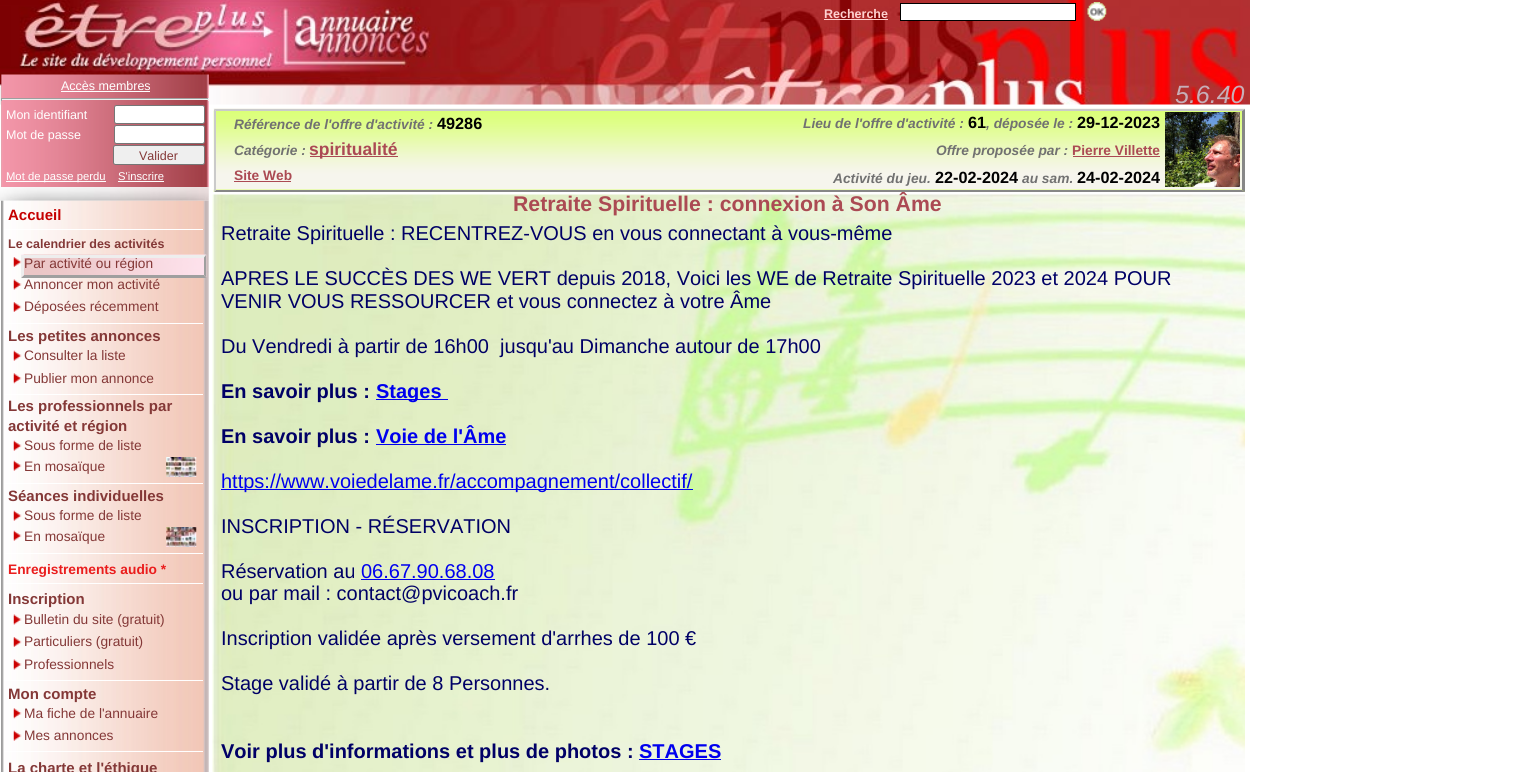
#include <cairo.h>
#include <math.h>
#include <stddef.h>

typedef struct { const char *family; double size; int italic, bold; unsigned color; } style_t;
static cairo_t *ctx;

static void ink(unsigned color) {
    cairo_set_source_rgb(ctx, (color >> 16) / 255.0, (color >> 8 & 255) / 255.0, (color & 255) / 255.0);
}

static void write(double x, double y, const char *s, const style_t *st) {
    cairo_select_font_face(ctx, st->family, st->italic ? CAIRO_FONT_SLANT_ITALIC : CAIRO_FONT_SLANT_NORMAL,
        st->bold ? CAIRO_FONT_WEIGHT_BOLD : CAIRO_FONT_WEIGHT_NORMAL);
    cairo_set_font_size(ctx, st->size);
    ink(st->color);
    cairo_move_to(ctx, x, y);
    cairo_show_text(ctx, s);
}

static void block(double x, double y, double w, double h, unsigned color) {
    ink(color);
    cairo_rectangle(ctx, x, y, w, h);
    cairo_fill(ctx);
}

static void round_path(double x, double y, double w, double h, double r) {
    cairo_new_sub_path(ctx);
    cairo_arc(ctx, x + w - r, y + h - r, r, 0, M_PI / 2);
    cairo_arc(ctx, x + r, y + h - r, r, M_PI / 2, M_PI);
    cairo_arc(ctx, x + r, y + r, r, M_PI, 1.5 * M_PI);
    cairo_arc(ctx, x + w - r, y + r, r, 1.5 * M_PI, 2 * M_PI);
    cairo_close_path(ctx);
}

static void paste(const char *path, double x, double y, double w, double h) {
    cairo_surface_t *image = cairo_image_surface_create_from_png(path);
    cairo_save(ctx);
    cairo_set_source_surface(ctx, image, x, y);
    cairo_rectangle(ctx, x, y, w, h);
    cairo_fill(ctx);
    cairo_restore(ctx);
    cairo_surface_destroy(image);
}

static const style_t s1 = {"Liberation Sans", 12.5, 0, 1, 0xffd1d0};
static const style_t s2 = {"Liberation Sans", 12.5, 0, 0, 0xffffff};
static const style_t s3 = {"Liberation Sans", 12.5, 0, 0, 0x843837};
static const style_t s4 = {"Liberation Sans", 11.25, 0, 0, 0xffffff};
static const style_t s5 = {"Liberation Sans", 25, 1, 0, 0xc7aeb8};
static const style_t s6 = {"Liberation Sans", 13.75, 1, 1, 0x717171};
static const style_t s7 = {"Liberation Sans", 16.25, 0, 1, 0x000000};
static const style_t s8 = {"Liberation Sans", 17.5, 0, 1, 0xab4a53};
static const style_t s9 = {"Liberation Sans", 13.75, 0, 1, 0xab4a53};
static const style_t s10 = {"Liberation Sans", 21.25, 0, 1, 0xab4a53};
static const style_t s11 = {"Liberation Sans", 20, 0, 0, 0x000066};
static const style_t s12 = {"Liberation Sans", 20, 0, 1, 0x000066};
static const style_t s13 = {"Liberation Sans", 20, 0, 1, 0x0000ee};
static const style_t s14 = {"Liberation Sans", 20, 0, 0, 0x0000ee};
static const style_t s15 = {"Liberation Sans", 15, 0, 1, 0xc50000};
static const style_t s16 = {"Liberation Sans", 12.5, 0, 1, 0x843837};
static const style_t s17 = {"Liberation Sans", 13.75, 0, 0, 0x843837};
static const style_t s18 = {"Liberation Sans", 15, 0, 1, 0x843837};
static const style_t s19 = {"Liberation Sans", 13.75, 0, 1, 0xea1d1d};

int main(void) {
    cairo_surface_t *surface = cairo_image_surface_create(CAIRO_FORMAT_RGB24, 1532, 772);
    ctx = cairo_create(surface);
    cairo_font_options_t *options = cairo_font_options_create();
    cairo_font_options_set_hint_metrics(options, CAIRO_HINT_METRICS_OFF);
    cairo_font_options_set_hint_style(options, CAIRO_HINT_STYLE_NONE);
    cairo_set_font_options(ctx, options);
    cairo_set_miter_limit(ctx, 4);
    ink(0xffffff);
    cairo_paint(ctx);
    paste("pic3.png", 0, 0, 1250, 105);
    write(824, 18, "Recherche", &s1);
    block(824, 19, 64, 1, 0xffd1d0);
    ink(0xffffff);
    cairo_rectangle(ctx, 900.5, 3.5, 175, 17);
    cairo_fill_preserve(ctx);
    ink(0x000000);
    cairo_set_line_width(ctx, 1);
    cairo_stroke(ctx);
    paste("pic1.png", 1087, 2, 20, 19);
    paste("pic4.png", 0, 157, 209, 44);
    paste("pic2.png", 1, 74, 208, 113);
    write(61, 90, "Accès membres", &s2);
    block(61, 91, 89, 1, 0xffffff);
    block(1, 98, 208, 1, 0x9f9f9f);
    block(208, 98, 1, 3, 0xeeeeee);
    block(1, 99, 208, 1, 0xeeeeee);
    block(1, 98, 1, 3, 0x9f9f9f);
    write(6, 119, "Mon identifiant", &s2);
    round_path(114.5, 105.5, 90, 18, 2);
    cairo_fill_preserve(ctx);
    ink(0x767676);
    cairo_stroke(ctx);
    write(6, 139, "Mot de passe", &s2);
    round_path(114.5, 125.5, 90, 18, 2);
    cairo_fill_preserve(ctx);
    ink(0x767676);
    cairo_stroke(ctx);
    ink(0xefefef);
    round_path(113.5, 145.5, 91, 19, 2);
    cairo_fill_preserve(ctx);
    ink(0x767676);
    cairo_stroke(ctx);
    write(139, 160, "Valider", &s3);
    block(6, 181, 100, 1, 0xffffff);
    write(6, 180, "Mot de passe perdu", &s4);
    write(118, 180, "S'inscrire", &s4);
    block(118, 181, 46, 1, 0xffffff);
    write(1175, 103, "5.6.40", &s5);
    paste("pic5.png", 213, 108, 1032, 84);
    ink(0xcacaca);
    cairo_new_path(ctx);
    cairo_move_to(ctx, 214, 109);
    cairo_line_to(ctx, 1245, 109);
    cairo_line_to(ctx, 1242, 111);
    cairo_line_to(ctx, 216, 111);
    cairo_close_path(ctx);
    cairo_fill(ctx);
    ink(0x878787);
    cairo_new_path(ctx);
    cairo_move_to(ctx, 1245, 109);
    cairo_line_to(ctx, 1245, 192);
    cairo_line_to(ctx, 1242, 190);
    cairo_line_to(ctx, 1242, 111);
    cairo_close_path(ctx);
    cairo_fill(ctx);
    cairo_new_path(ctx);
    cairo_move_to(ctx, 1245, 192);
    cairo_line_to(ctx, 214, 192);
    cairo_line_to(ctx, 216, 190);
    cairo_line_to(ctx, 1242, 190);
    cairo_close_path(ctx);
    cairo_fill(ctx);
    ink(0xcacaca);
    cairo_new_path(ctx);
    cairo_move_to(ctx, 214, 192);
    cairo_line_to(ctx, 214, 109);
    cairo_line_to(ctx, 216, 111);
    cairo_line_to(ctx, 216, 190);
    cairo_close_path(ctx);
    cairo_fill(ctx);
    write(234, 129, "Référence de l'offre d'activité :", &s6);
    write(437, 129, "49286", &s7);
    write(234, 155, "Catégorie :", &s6);
    block(310, 156, 88, 1, 0xab4a53);
    write(309, 155, "spiritualité", &s8);
    write(234, 180, "Site Web", &s9);
    block(234, 181, 57, 1, 0xab4a53);
    write(803, 128, "Lieu de l'offre d'activité :", &s6);
    write(968, 128, "61", &s7);
    write(986, 128, ", déposée le :", &s6);
    write(1077, 128, "29-12-2023", &s7);
    write(936, 155, "Offre proposée par :", &s6);
    write(1072, 155, "Pierre Villette", &s9);
    block(1073, 156, 87, 1, 0xab4a53);
    write(833, 183, "Activité du jeu.", &s6);
    write(935, 183, "22-02-2024", &s7);
    write(1022, 183, "au sam.", &s6);
    write(1077, 183, "24-02-2024", &s7);
    paste("pic6.png", 1165, 112, 75, 75);
    paste("pic7.png", 212, 194, 1033, 578);
    write(513, 211, "Retraite Spirituelle : connexion à Son Âme", &s10);
    write(221, 240, "Retraite Spirituelle : RECENTREZ-VOUS en vous connectant à vous-même", &s11);
    write(221, 285, "APRES LE SUCCÈS DES WE VERT depuis 2018, Voici les WE de Retraite Spirituelle 2023 et 2024 POUR", &s11);
    write(221, 308, "VENIR VOUS RESSOURCER et vous connectez à votre Âme", &s11);
    write(221, 353, "Du Vendredi à partir de 16h00  jusqu'au Dimanche autour de 17h00", &s11);
    write(221, 398, "En savoir plus :", &s12);
    block(376, 399, 72, 1, 0x0000ee);
    write(376, 398, "Stages", &s13);
    write(221, 443, "En savoir plus :", &s12);
    block(376, 444, 130, 1, 0x0000ee);
    write(376, 443, "Voie de l'Âme", &s13);
    block(221, 489, 472, 1, 0x0000ee);
    write(221, 488, "https://www.voiedelame.fr/accompagnement/collectif/", &s14);
    write(221, 533, "INSCRIPTION - RÉSERVATION", &s11);
    write(221, 578, "Réservation au", &s11);
    write(361, 578, "06.67.90.68.08", &s14);
    block(361, 579, 134, 1, 0x0000ee);
    write(221, 600, "ou par mail : contact@pvicoach.fr", &s11);
    write(221, 645, "Inscription validée après versement d'arrhes de 100 €", &s11);
    write(221, 690, "Stage validé à partir de 8 Personnes.", &s11);
    write(221, 758, "Voir plus d'informations et plus de photos :", &s12);
    write(639, 758, "STAGES", &s13);
    block(639, 759, 82, 1, 0x0000ee);
    paste("pic8.png", 1, 200, 208, 572);
    write(8, 220, "Accueil", &s15);
    block(4, 229, 199, 1, 0xffffff);
    write(8, 248, "Le calendrier des activités", &s16);
    paste("pic10.png", 21, 254, 186, 23);
    ink(0xeeeeee);
    cairo_new_path(ctx);
    cairo_move_to(ctx, 21, 255);
    cairo_line_to(ctx, 206, 255);
    cairo_line_to(ctx, 204, 258);
    cairo_line_to(ctx, 24, 258);
    cairo_close_path(ctx);
    cairo_fill(ctx);
    ink(0x9f9f9f);
    cairo_new_path(ctx);
    cairo_move_to(ctx, 206, 255);
    cairo_line_to(ctx, 206, 277.5);
    cairo_line_to(ctx, 204, 275);
    cairo_line_to(ctx, 204, 257.5);
    cairo_close_path(ctx);
    cairo_fill(ctx);
    cairo_new_path(ctx);
    cairo_move_to(ctx, 206, 278);
    cairo_line_to(ctx, 21, 278);
    cairo_line_to(ctx, 24, 275);
    cairo_line_to(ctx, 204, 275);
    cairo_close_path(ctx);
    cairo_fill(ctx);
    ink(0xeeeeee);
    cairo_new_path(ctx);
    cairo_move_to(ctx, 21, 277.5);
    cairo_line_to(ctx, 21, 255);
    cairo_line_to(ctx, 24, 257.5);
    cairo_line_to(ctx, 24, 275);
    cairo_close_path(ctx);
    cairo_fill(ctx);
    paste("pic9.png", 13, 257, 9, 10);
    write(24, 268, "Par activité ou région", &s17);
    paste("pic11.png", 13, 279, 9, 11);
    write(24, 289, "Annoncer mon activité", &s17);
    paste("pic12.png", 13, 302, 9, 10);
    write(24, 311, "Déposées récemment", &s17);
    block(4, 323, 199, 1, 0xffffff);
    write(8, 341, "Les petites annonces", &s18);
    paste("pic13.png", 13, 350, 9, 11);
    write(24, 360, "Consulter la liste", &s17);
    paste("pic14.png", 13, 373, 9, 11);
    write(24, 383, "Publier mon annonce", &s17);
    block(4, 394, 199, 1, 0xffffff);
    write(8, 411, "Les professionnels par", &s18);
    write(8, 431, "activité et région", &s18);
    paste("pic13.png", 13, 440, 9, 11);
    write(24, 450, "Sous forme de liste", &s17);
    paste("pic13.png", 13, 460, 9, 11);
    write(24, 471, "En mosaïque", &s17);
    paste("pic15.png", 166, 457, 31, 20);
    block(4, 483, 199, 1, 0xffffff);
    write(8, 501, "Séances individuelles", &s18);
    paste("pic13.png", 13, 510, 9, 11);
    write(24, 520, "Sous forme de liste", &s17);
    paste("pic13.png", 13, 530, 9, 11);
    write(24, 541, "En mosaïque", &s17);
    paste("pic16.png", 166, 527, 31, 20);
    block(4, 553, 199, 1, 0xffffff);
    write(8, 574, "Enregistrements audio *", &s19);
    block(4, 583, 199, 1, 0xffffff);
    write(8, 604, "Inscription", &s18);
    paste("pic11.png", 13, 614, 9, 11);
    write(24, 624, "Bulletin du site (gratuit)", &s17);
    paste("pic12.png", 13, 637, 9, 10);
    write(24, 646, "Particuliers (gratuit)", &s17);
    paste("pic11.png", 13, 659, 9, 11);
    write(24, 669, "Professionnels", &s17);
    block(4, 680, 199, 1, 0xffffff);
    write(8, 699, "Mon compte", &s18);
    paste("pic14.png", 13, 708, 9, 11);
    write(24, 718, "Ma fiche de l'annuaire", &s17);
    paste("pic13.png", 13, 730, 9, 11);
    write(24, 740, "Mes annonces", &s17);
    block(4, 751, 199, 1, 0xffffff);
    write(8, 773, "La charte et l'éthique", &s18);
    cairo_surface_write_to_png(surface, "screenshot.png");
    cairo_font_options_destroy(options);
    cairo_destroy(ctx);
    cairo_surface_destroy(surface);
    return 0;
}
